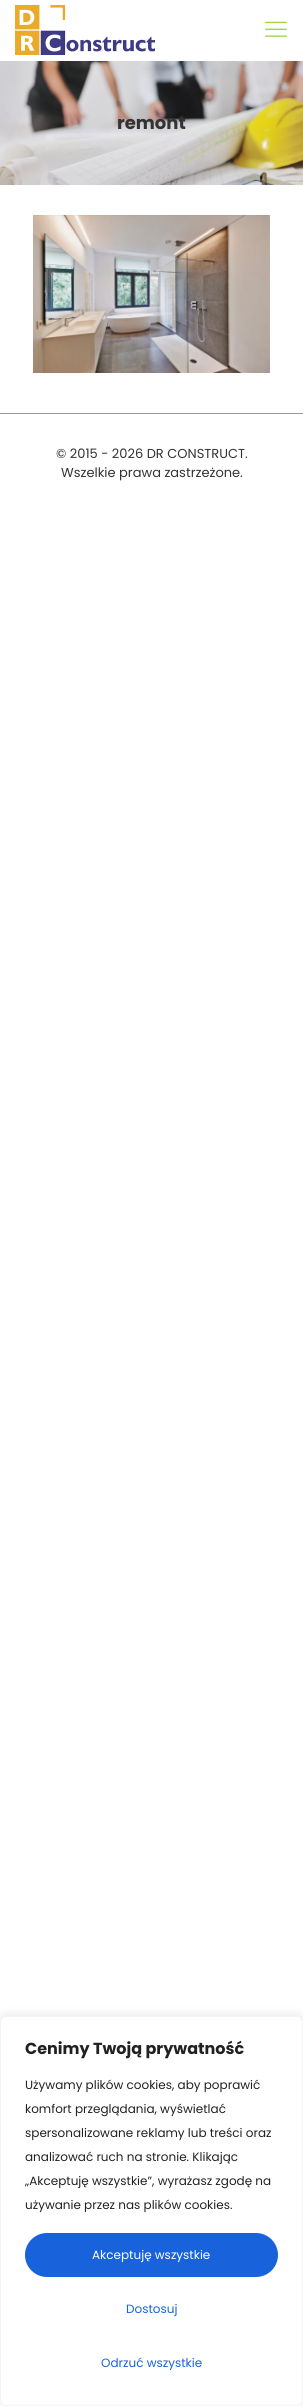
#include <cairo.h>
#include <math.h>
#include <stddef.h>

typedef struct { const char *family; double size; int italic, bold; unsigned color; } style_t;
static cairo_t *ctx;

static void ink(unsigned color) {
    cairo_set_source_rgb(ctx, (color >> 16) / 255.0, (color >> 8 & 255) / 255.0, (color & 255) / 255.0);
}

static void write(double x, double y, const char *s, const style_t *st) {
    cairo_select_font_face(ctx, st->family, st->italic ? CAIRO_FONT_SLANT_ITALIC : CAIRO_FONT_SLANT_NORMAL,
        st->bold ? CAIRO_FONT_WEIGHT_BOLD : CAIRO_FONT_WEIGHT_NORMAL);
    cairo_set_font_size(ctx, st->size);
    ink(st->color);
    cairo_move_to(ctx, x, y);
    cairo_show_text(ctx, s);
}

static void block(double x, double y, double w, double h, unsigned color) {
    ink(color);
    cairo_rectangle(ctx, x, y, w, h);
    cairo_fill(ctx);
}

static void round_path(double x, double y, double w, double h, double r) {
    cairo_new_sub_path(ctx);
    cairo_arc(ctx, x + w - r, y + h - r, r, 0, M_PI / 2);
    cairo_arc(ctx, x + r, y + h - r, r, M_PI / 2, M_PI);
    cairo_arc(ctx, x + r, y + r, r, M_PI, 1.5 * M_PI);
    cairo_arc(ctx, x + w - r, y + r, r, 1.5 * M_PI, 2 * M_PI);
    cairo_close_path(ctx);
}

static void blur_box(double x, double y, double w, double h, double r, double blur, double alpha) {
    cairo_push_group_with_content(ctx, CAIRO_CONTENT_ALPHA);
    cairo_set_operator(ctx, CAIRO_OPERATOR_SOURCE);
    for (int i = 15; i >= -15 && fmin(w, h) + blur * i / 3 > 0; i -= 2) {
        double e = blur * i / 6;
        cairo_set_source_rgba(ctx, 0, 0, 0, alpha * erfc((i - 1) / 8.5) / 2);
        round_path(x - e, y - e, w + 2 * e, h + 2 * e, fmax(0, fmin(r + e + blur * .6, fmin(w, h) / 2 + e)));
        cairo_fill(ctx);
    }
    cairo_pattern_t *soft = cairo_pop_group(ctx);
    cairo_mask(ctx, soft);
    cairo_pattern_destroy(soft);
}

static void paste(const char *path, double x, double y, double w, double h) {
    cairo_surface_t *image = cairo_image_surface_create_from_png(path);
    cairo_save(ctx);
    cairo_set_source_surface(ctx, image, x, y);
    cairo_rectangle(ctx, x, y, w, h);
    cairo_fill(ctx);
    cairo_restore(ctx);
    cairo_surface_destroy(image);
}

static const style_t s1 = {"Poppins", 18, 0, 1, 0x333333};
static const style_t s2 = {"Poppins", 13, 0, 0, 0x333333};
static const style_t s3 = {"Poppins", 16, 0, 1, 0x212121};
static const style_t s4 = {"Poppins", 12, 0, 0, 0x212121};
static const style_t s5 = {"Poppins", 12, 0, 0, 0xffffff};
static const style_t s6 = {"Poppins", 12, 0, 0, 0x1863dc};

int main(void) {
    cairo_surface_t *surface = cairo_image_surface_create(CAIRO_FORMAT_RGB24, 303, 2406);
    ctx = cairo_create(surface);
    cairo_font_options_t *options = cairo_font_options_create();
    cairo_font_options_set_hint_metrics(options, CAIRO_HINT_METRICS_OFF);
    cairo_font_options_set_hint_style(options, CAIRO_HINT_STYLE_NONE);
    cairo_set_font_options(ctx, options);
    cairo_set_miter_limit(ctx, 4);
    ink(0xffffff);
    cairo_paint(ctx);
    paste("pic1.png", 15, 5, 140, 50);
    paste("pic2.png", 265, 21, 22, 16);
    paste("pic3.png", 0, 61, 303, 124);
    write(117, 129, "remont", &s1);
    paste("pic4.png", 33, 215, 237, 158);
    block(0, 413, 303, 1, 0x999999);
    write(56, 458, "© 2015 - 2026 DR CONSTRUCT.", &s2);
    write(61, 477, "Wszelkie prawa zastrzeżone.", &s2);
    ink(0xacabab);
    blur_box(0, 2015, 303, 390, 6, 5, 0.3);
    ink(0xffffff);
    round_path(0.5, 2016.5, 302, 389, 5.5);
    cairo_fill_preserve(ctx);
    ink(0xf4f4f4);
    cairo_set_line_width(ctx, 1);
    cairo_stroke(ctx);
    write(25, 2054, "Cenimy Twoją prywatność", &s3);
    write(25, 2089, "Używamy plików cookies, aby poprawić", &s4);
    write(25, 2113, "komfort przeglądania, wyświetlać", &s4);
    write(25, 2137, "spersonalizowane reklamy lub treści oraz", &s4);
    write(25, 2161, "analizować ruch na stronie. Klikając", &s4);
    write(25, 2185, "„Akceptuję wszystkie”, wyrażasz zgodę na", &s4);
    write(25, 2209, "używanie przez nas plików cookies.", &s4);
    ink(0x1863dc);
    round_path(25, 2233, 253, 44, 22);
    cairo_fill(ctx);
    write(92, 2259, "Akceptuję wszystkie", &s5);
    write(126, 2313, "Dostosuj", &s6);
    write(101, 2367, "Odrzuć wszystkie", &s6);
    cairo_surface_write_to_png(surface, "screenshot.png");
    cairo_font_options_destroy(options);
    cairo_destroy(ctx);
    cairo_surface_destroy(surface);
    return 0;
}
